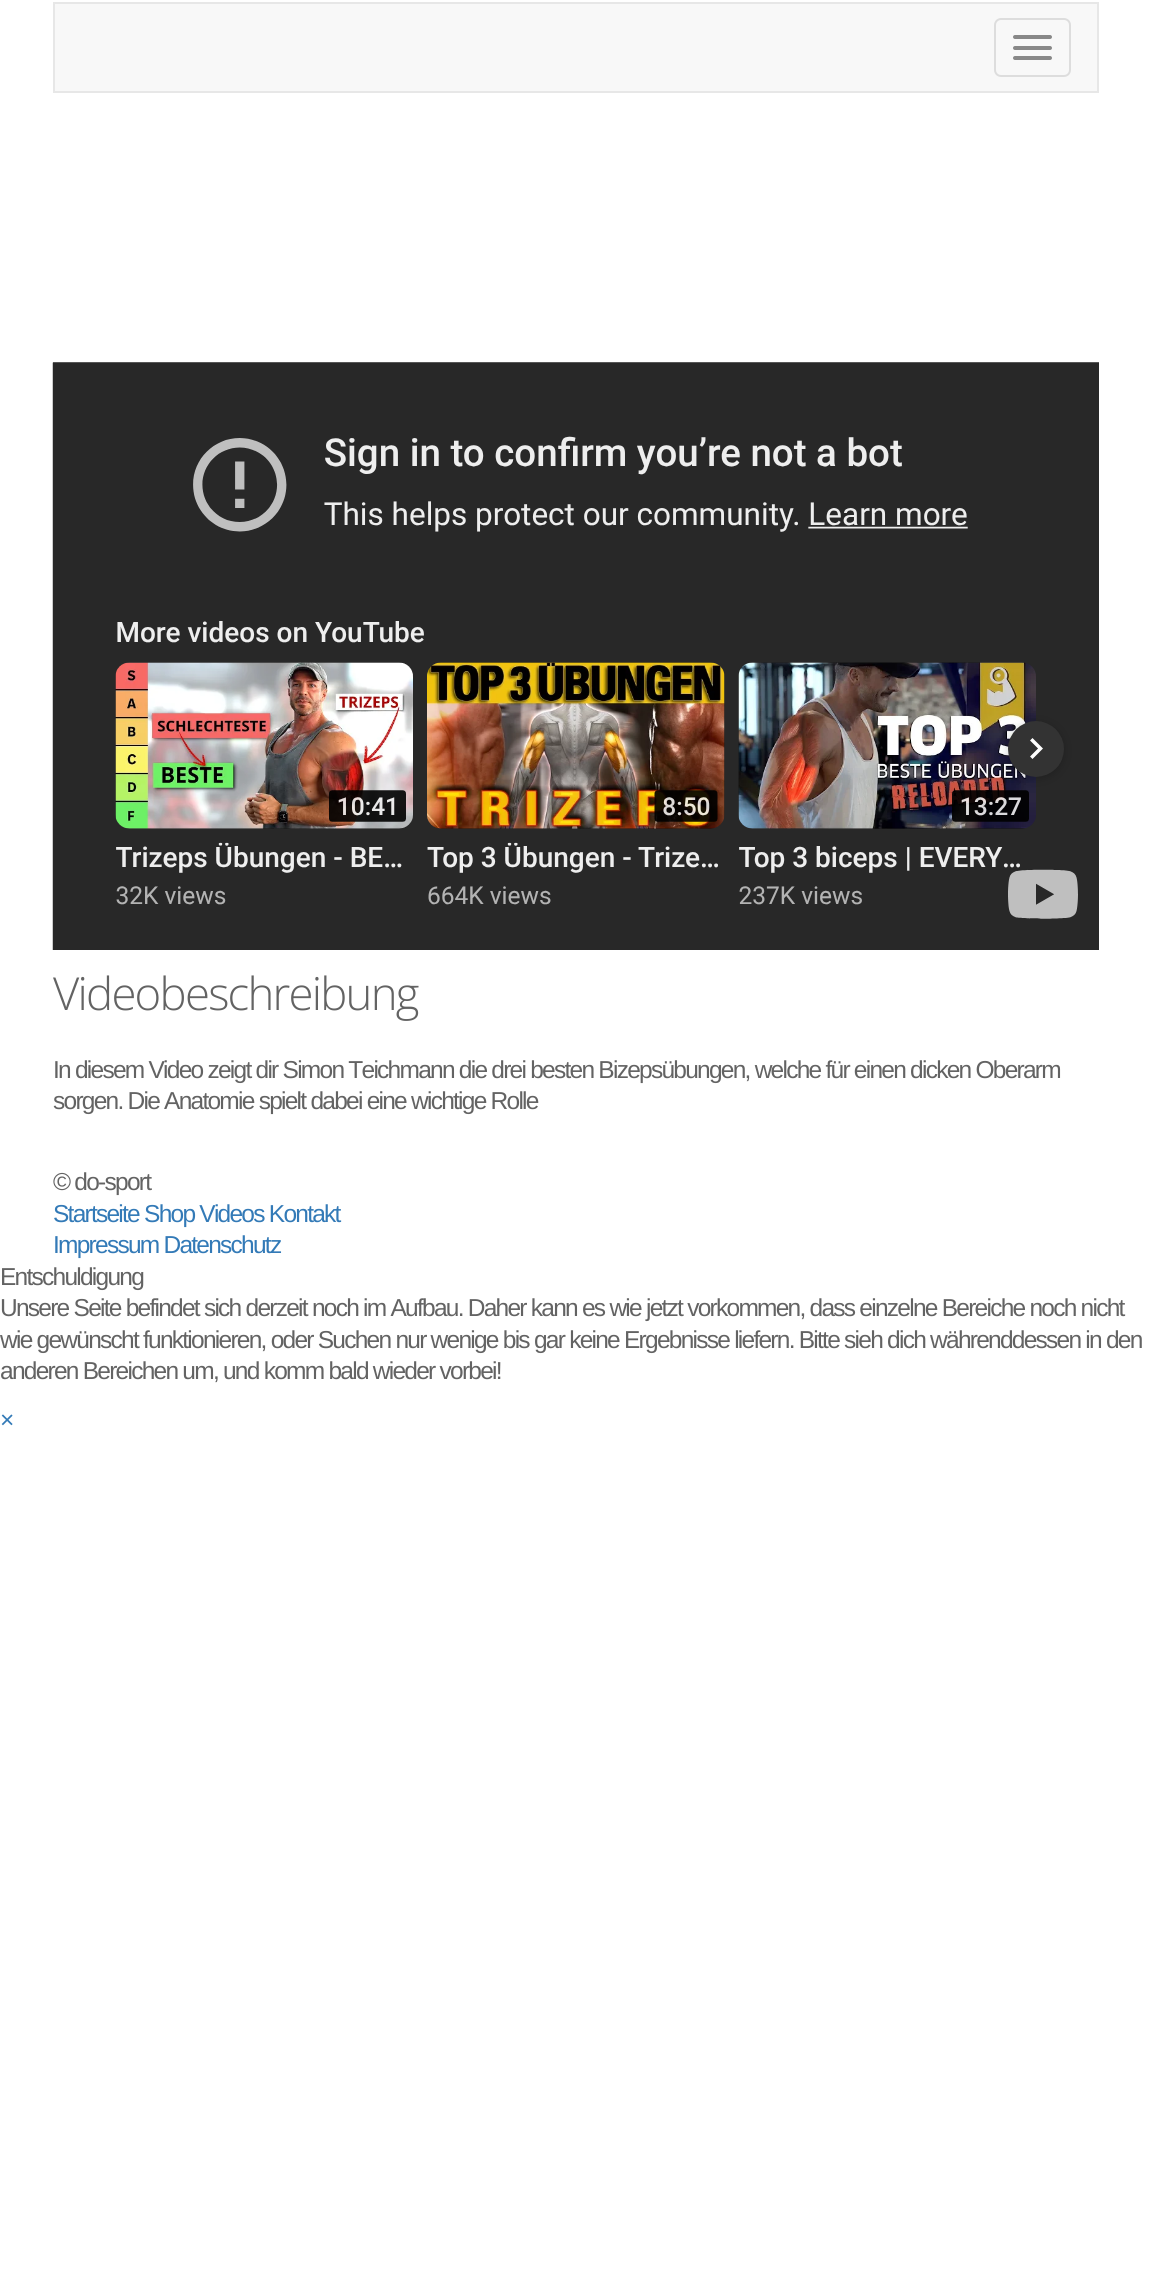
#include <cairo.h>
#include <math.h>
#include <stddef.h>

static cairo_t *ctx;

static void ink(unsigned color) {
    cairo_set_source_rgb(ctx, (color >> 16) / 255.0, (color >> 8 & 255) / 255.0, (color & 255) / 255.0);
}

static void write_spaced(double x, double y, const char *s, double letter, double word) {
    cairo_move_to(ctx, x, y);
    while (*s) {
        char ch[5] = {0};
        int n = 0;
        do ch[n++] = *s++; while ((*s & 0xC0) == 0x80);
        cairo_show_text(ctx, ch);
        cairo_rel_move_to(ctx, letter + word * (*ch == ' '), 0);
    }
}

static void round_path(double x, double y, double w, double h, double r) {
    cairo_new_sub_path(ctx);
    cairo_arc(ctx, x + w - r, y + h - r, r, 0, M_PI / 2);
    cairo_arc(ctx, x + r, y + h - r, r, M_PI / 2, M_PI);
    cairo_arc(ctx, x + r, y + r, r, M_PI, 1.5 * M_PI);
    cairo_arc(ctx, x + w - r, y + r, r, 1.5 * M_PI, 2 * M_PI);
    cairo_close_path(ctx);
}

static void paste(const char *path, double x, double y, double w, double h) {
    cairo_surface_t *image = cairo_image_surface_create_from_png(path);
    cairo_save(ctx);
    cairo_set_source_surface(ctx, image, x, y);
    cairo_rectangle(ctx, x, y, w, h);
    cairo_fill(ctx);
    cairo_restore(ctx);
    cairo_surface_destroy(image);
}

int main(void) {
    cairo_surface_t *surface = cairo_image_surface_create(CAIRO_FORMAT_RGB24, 1151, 2275);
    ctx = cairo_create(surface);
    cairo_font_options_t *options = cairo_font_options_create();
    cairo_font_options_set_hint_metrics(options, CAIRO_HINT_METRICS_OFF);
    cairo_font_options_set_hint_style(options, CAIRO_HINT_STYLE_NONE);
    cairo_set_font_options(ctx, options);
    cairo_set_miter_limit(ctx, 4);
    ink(0xffffff);
    cairo_paint(ctx);
    ink(0xf8f8f8);
    cairo_rectangle(ctx, 54, 3, 1044, 89);
    cairo_fill_preserve(ctx);
    ink(0xe7e7e7);
    cairo_stroke(ctx);
    round_path(995, 19, 75, 57, 6);
    ink(0xdddddd);
    cairo_stroke(ctx);
    ink(0x888888);
    round_path(1013, 35, 39, 4, 2);
    cairo_fill(ctx);
    round_path(1013, 46, 39, 4, 2);
    cairo_fill(ctx);
    round_path(1013, 56, 39, 4, 2);
    cairo_fill(ctx);
    paste("pic1.png", 52, 362, 1047, 588);
    cairo_select_font_face(ctx, "Open Sans Light", CAIRO_FONT_SLANT_NORMAL, CAIRO_FONT_WEIGHT_NORMAL);
    cairo_set_font_size(ctx, 45.5);
    ink(0x636363);
    write_spaced(53, 1010, "Videobeschreibung", -1.75, 0);
    cairo_select_font_face(ctx, "Liberation Sans", CAIRO_FONT_SLANT_NORMAL, CAIRO_FONT_WEIGHT_NORMAL);
    cairo_set_font_size(ctx, 24.5);
    write_spaced(53, 1078, "In diesem Video zeigt dir Simon Teichmann die drei besten Bizepsübungen, welche für einen dicken Oberarm", -1.75, 0);
    write_spaced(53, 1109, "sorgen. Die Anatomie spielt dabei eine wichtige Rolle", -1.75, 0);
    write_spaced(53, 1190, "© do-sport", -1.75, 0);
    ink(0x337ab7);
    write_spaced(53, 1222, "Startseite Shop Videos Kontakt", -1.75, 0);
    write_spaced(53, 1253, "Impressum Datenschutz", -1.75, 0);
    ink(0x636363);
    write_spaced(0, 1285, "Entschuldigung", -1.75, 0);
    write_spaced(0, 1316, "Unsere Seite befindet sich derzeit noch im Aufbau. Daher kann es wie jetzt vorkommen, dass einzelne Bereiche noch nicht", -1.75, 0);
    write_spaced(0, 1348, "wie gewünscht funktionieren, oder Suchen nur wenige bis gar keine Ergebnisse liefern. Bitte sieh dich währenddessen in den", -1.75, 0);
    write_spaced(0, 1379, "anderen Bereichen um, und komm bald wieder vorbei!", -1.75, 0);
    ink(0x337ab7);
    write_spaced(0, 1428, "×", -1.75, 0);
    cairo_surface_write_to_png(surface, "screenshot.png");
    cairo_font_options_destroy(options);
    cairo_destroy(ctx);
    cairo_surface_destroy(surface);
    return 0;
}
